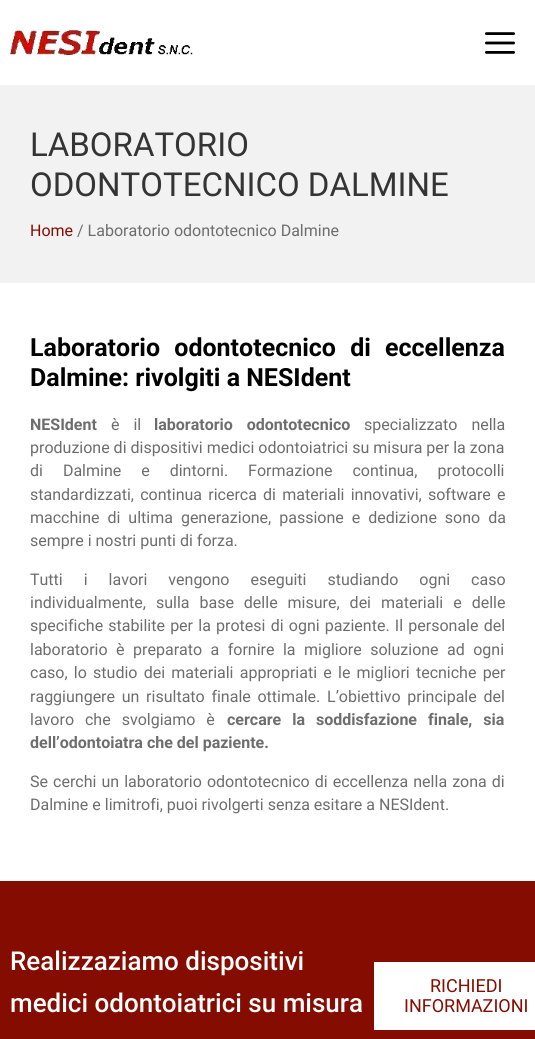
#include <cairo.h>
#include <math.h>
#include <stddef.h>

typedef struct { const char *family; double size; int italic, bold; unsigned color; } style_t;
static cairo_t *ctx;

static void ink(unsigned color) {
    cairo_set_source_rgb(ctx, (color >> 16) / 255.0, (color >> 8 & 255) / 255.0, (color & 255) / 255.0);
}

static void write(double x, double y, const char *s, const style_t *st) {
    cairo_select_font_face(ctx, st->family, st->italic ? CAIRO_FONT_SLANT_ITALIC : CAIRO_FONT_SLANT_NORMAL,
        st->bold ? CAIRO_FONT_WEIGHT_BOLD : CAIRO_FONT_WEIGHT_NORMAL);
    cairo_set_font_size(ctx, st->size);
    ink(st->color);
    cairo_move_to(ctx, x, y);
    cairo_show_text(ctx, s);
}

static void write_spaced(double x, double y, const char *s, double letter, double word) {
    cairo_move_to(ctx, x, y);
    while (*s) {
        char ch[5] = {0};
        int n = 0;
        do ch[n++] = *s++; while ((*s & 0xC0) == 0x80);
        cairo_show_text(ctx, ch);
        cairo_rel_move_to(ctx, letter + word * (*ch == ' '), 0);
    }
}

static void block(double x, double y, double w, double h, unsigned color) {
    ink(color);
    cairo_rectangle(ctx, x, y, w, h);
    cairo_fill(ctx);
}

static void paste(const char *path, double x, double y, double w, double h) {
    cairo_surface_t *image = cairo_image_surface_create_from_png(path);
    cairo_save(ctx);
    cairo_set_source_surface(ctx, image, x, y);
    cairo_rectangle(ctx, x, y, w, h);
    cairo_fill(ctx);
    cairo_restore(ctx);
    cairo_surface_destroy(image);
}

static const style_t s1 = {"Roboto", 33, 0, 0, 0x343434};
static const style_t s2 = {"Roboto", 16, 0, 0, 0x840c00};
static const style_t s3 = {"Roboto", 16, 0, 0, 0x6d6d6d};
static const style_t s4 = {"Roboto", 25, 0, 1, 0x000000};
static const style_t s5 = {"Roboto", 16, 0, 1, 0x6d6d6d};
static const style_t s6 = {"Roboto Medium", 26, 0, 0, 0xffffff};
static const style_t s7 = {"Roboto", 18, 0, 0, 0x840c00};

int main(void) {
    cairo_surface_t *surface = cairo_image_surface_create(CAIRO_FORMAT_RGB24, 535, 1039);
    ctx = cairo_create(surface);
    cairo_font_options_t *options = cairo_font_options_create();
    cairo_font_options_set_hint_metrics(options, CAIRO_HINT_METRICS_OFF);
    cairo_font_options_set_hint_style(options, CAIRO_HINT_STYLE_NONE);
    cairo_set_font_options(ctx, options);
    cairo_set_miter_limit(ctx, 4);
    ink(0xffffff);
    cairo_paint(ctx);
    paste("pic1.png", 10, 30, 183, 25);
    paste("pic2.png", 485, 32, 30, 22);
    block(0, 85, 535, 198, 0xf2f2f2);
    write(30, 156, "LABORATORIO", &s1);
    write(30, 196, "ODONTOTECNICO DALMINE", &s1);
    write(30, 236, "Home", &s2);
    write(77, 236, "/ Laboratorio odontotecnico Dalmine", &s3);
    cairo_select_font_face(ctx, "Roboto", CAIRO_FONT_SLANT_NORMAL, CAIRO_FONT_WEIGHT_BOLD);
    cairo_set_font_size(ctx, 25);
    ink(0x000000);
    write_spaced(30, 356, "Laboratorio odontotecnico di eccellenza", 0, 8);
    write(30, 386, "Dalmine: rivolgiti a NESIdent", &s4);
    write(30, 430, "NESIdent", &s5);
    cairo_select_font_face(ctx, "Roboto", CAIRO_FONT_SLANT_NORMAL, CAIRO_FONT_WEIGHT_NORMAL);
    write_spaced(111, 430, "è il", 0, 10);
    cairo_select_font_face(ctx, "Roboto", CAIRO_FONT_SLANT_NORMAL, CAIRO_FONT_WEIGHT_BOLD);
    write_spaced(154, 430, "laboratorio odontotecnico", 0, 10);
    cairo_select_font_face(ctx, "Roboto", CAIRO_FONT_SLANT_NORMAL, CAIRO_FONT_WEIGHT_NORMAL);
    write_spaced(364, 430, "specializzato nella", 0, 10);
    write(30, 453, "produzione di dispositivi medici odontoiatrici su misura per la zona", &s3);
    write_spaced(30, 476, "di Dalmine e dintorni. Formazione continua, protocolli", 0, 16);
    write_spaced(30, 500, "standardizzati, continua ricerca di materiali innovativi, software e", 0, 2.25);
    write_spaced(30, 523, "macchine di ultima generazione, passione e dedizione sono da", 0, 4);
    write(30, 546, "sempre i nostri punti di forza.", &s3);
    write_spaced(30, 585, "Tutti i lavori vengono eseguiti studiando ogni caso", 0, 17);
    write_spaced(30, 608, "individualmente, sulla base delle misure, dei materiali e delle", 0, 6);
    write_spaced(30, 631, "specifiche stabilite per la protesi di ogni paziente. Il personale del", 0, 1.25);
    write_spaced(30, 655, "laboratorio è preparato a fornire la migliore soluzione ad ogni", 0, 4.5);
    write_spaced(30, 678, "caso, lo studio dei materiali appropriati e le migliori tecniche per", 0, 2.25);
    write_spaced(30, 702, "raggiungere un risultato finale ottimale. L’obiettivo principale del", 0, 2.75);
    write_spaced(30, 725, "lavoro che svolgiamo è", 0, 7);
    cairo_select_font_face(ctx, "Roboto", CAIRO_FONT_SLANT_NORMAL, CAIRO_FONT_WEIGHT_BOLD);
    write_spaced(227, 725, "cercare la soddisfazione finale, sia", 0, 7);
    write(30, 748, "dell’odontoiatra che del paziente.", &s5);
    cairo_select_font_face(ctx, "Roboto", CAIRO_FONT_SLANT_NORMAL, CAIRO_FONT_WEIGHT_NORMAL);
    write_spaced(30, 787, "Se cerchi un laboratorio odontotecnico di eccellenza nella zona di", 0, 1.1);
    write(30, 810, "Dalmine e limitrofi, puoi rivolgerti senza esitare a NESIdent.", &s3);
    block(0, 881, 535, 158, 0x840c00);
    write(10, 970, "Realizzaziamo dispositivi", &s6);
    write(10, 1012, "medici odontoiatrici su misura", &s6);
    block(374, 962, 161, 68, 0xffffff);
    write(430, 992, "RICHIEDI", &s7);
    write(404, 1012, "INFORMAZIONI", &s7);
    cairo_surface_write_to_png(surface, "screenshot.png");
    cairo_font_options_destroy(options);
    cairo_destroy(ctx);
    cairo_surface_destroy(surface);
    return 0;
}
